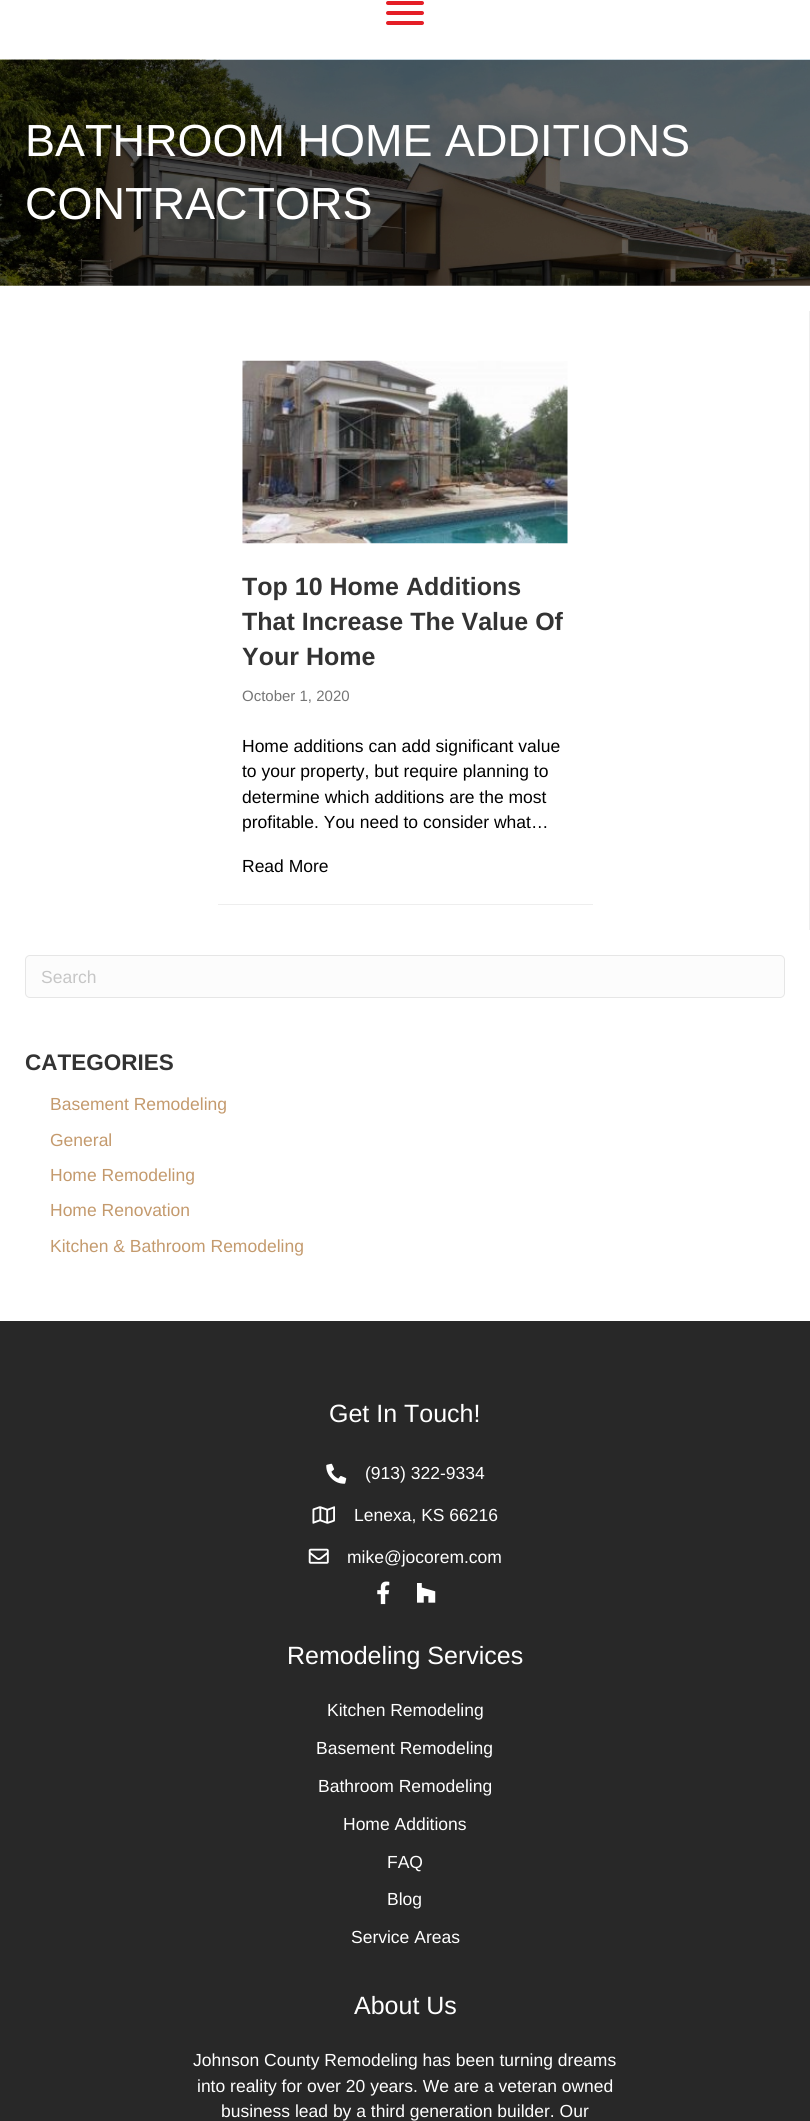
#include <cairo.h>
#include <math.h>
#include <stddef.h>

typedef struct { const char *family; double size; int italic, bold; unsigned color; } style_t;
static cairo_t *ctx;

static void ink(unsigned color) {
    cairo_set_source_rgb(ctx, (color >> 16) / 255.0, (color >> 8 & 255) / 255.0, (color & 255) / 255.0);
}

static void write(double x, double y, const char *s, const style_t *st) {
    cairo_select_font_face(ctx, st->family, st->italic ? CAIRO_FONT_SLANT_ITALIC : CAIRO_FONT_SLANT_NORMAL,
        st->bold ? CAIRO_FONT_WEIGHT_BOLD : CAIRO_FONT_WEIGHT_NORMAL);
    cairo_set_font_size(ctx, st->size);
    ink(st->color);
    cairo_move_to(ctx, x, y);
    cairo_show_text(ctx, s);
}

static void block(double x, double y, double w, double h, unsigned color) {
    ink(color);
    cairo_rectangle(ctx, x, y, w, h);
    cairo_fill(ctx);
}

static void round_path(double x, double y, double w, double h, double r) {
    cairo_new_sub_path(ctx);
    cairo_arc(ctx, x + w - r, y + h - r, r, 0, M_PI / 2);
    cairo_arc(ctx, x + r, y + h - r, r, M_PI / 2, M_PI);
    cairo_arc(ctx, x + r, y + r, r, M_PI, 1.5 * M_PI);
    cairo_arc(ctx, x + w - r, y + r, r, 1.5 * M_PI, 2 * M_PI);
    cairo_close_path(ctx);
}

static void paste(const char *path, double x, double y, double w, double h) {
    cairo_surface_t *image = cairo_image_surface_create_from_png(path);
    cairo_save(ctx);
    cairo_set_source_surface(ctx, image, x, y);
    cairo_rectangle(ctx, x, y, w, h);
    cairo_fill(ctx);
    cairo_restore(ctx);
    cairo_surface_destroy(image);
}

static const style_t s1 = {"Liberation Sans", 45, 0, 0, 0xffffff};
static const style_t s2 = {"Liberation Sans", 25, 0, 1, 0x333333};
static const style_t s3 = {"Liberation Sans", 15, 0, 0, 0x757575};
static const style_t s4 = {"Liberation Sans", 17.5, 0, 0, 0x000000};
static const style_t s5 = {"Liberation Sans", 17.5, 0, 0, 0xc6c6c6};
static const style_t s6 = {"Liberation Sans", 22.5, 0, 1, 0x333333};
static const style_t s7 = {"Liberation Sans", 17.5, 0, 0, 0xc49a6d};
static const style_t s8 = {"Liberation Sans", 25, 0, 0, 0xffffff};
static const style_t s9 = {"Liberation Sans", 17.5, 0, 0, 0xffffff};

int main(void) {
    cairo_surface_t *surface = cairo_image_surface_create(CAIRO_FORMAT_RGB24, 810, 2121);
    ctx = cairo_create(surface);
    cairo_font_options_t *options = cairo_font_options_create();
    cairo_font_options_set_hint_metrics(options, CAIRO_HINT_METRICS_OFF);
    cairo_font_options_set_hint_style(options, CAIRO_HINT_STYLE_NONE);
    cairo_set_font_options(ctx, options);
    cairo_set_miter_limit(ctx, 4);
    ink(0xffffff);
    cairo_paint(ctx);
    ink(0xe41e26);
    round_path(386, 11, 38, 4, 2);
    cairo_fill(ctx);
    round_path(386, 1, 38, 4, 2);
    cairo_fill(ctx);
    round_path(386, 21, 38, 4, 2);
    cairo_fill(ctx);
    paste("pic1.png", 0, 59, 810, 227);
    write(25, 156, "BATHROOM HOME ADDITIONS", &s1);
    write(25, 219, "CONTRACTORS", &s1);
    block(809, 311, 1, 619, 0xeeeeee);
    block(218, 904, 375, 1, 0xeeeeee);
    paste("pic2.png", 242, 360, 326, 184);
    write(242, 595, "Top 10 Home Additions", &s2);
    write(242, 630, "That Increase The Value Of", &s2);
    write(242, 665, "Your Home", &s2);
    write(242, 701, "October 1, 2020", &s3);
    write(242, 752, "Home additions can add significant value", &s4);
    write(242, 777, "to your property, but require planning to", &s4);
    write(242, 803, "determine which additions are the most", &s4);
    write(242, 828, "profitable. You need to consider what…", &s4);
    write(242, 872, "Read More", &s4);
    ink(0xfcfcfc);
    round_path(25.5, 955.5, 759, 42, 4.5);
    cairo_fill_preserve(ctx);
    ink(0xe6e6e6);
    cairo_set_line_width(ctx, 1);
    cairo_stroke(ctx);
    write(41, 983, "Search", &s5);
    write(25, 1070, "CATEGORIES", &s6);
    write(50, 1110, "Basement Remodeling", &s7);
    write(50, 1146, "General", &s7);
    write(50, 1181, "Home Remodeling", &s7);
    write(50, 1216, "Home Renovation", &s7);
    write(50, 1252, "Kitchen & Bathroom Remodeling", &s7);
    block(0, 1321, 810, 800, 0x282828);
    write(329, 1422, "Get In Touch!", &s8);
    paste("pic3.png", 326, 1463, 21, 21);
    write(365, 1479, "(913) 322-9334", &s9);
    paste("pic4.png", 312, 1506, 23, 18);
    write(354, 1521, "Lenexa, KS 66216", &s9);
    paste("pic5.png", 308, 1548, 21, 16);
    write(347, 1563, "mike@jocorem.com", &s9);
    paste("pic6.png", 377, 1581, 13, 24);
    paste("pic7.png", 417, 1583, 19, 20);
    write(287, 1664, "Remodeling Services", &s8);
    write(327, 1716, "Kitchen Remodeling", &s9);
    write(316, 1754, "Basement Remodeling", &s9);
    write(318, 1792, "Bathroom Remodeling", &s9);
    write(343, 1830, "Home Additions", &s9);
    write(387, 1868, "FAQ", &s9);
    write(387, 1905, "Blog", &s9);
    write(351, 1943, "Service Areas", &s9);
    write(354, 2014, "About Us", &s8);
    write(193, 2066, "Johnson County Remodeling has been turning dreams", &s9);
    write(197, 2092, "into reality for over 20 years. We are a veteran owned", &s9);
    write(221, 2117, "business lead by a third generation builder. Our", &s9);
    cairo_surface_write_to_png(surface, "screenshot.png");
    cairo_font_options_destroy(options);
    cairo_destroy(ctx);
    cairo_surface_destroy(surface);
    return 0;
}
